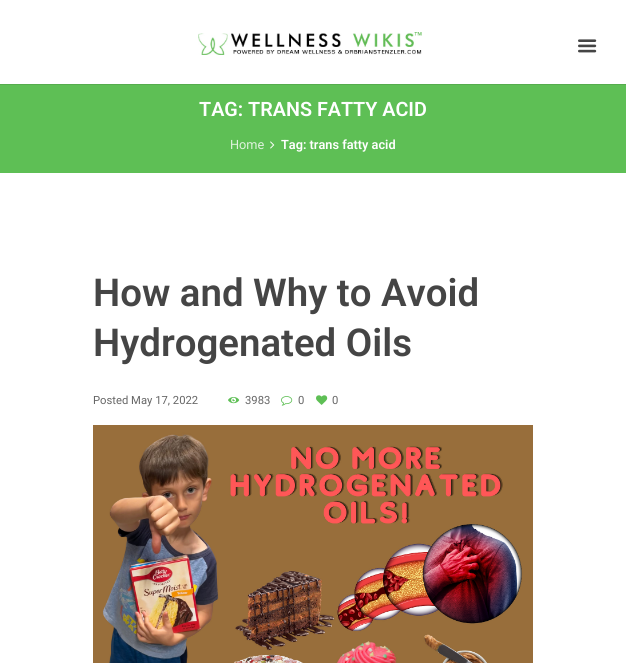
#include <cairo.h>
#include <math.h>
#include <stddef.h>

typedef struct { const char *family; double size; int italic, bold; unsigned color; } style_t;
static cairo_t *ctx;

static void ink(unsigned color) {
    cairo_set_source_rgb(ctx, (color >> 16) / 255.0, (color >> 8 & 255) / 255.0, (color & 255) / 255.0);
}

static void write(double x, double y, const char *s, const style_t *st) {
    cairo_select_font_face(ctx, st->family, st->italic ? CAIRO_FONT_SLANT_ITALIC : CAIRO_FONT_SLANT_NORMAL,
        st->bold ? CAIRO_FONT_WEIGHT_BOLD : CAIRO_FONT_WEIGHT_NORMAL);
    cairo_set_font_size(ctx, st->size);
    ink(st->color);
    cairo_move_to(ctx, x, y);
    cairo_show_text(ctx, s);
}

static void block(double x, double y, double w, double h, unsigned color) {
    ink(color);
    cairo_rectangle(ctx, x, y, w, h);
    cairo_fill(ctx);
}

static void paste(const char *path, double x, double y, double w, double h) {
    cairo_surface_t *image = cairo_image_surface_create_from_png(path);
    cairo_save(ctx);
    cairo_set_source_surface(ctx, image, x, y);
    cairo_rectangle(ctx, x, y, w, h);
    cairo_fill(ctx);
    cairo_restore(ctx);
    cairo_surface_destroy(image);
}

static const style_t s1 = {"Roboto SemiBold", 19.75, 0, 0, 0xffffff};
static const style_t s2 = {"Roboto", 12.75, 0, 0, 0xdff2dd};
static const style_t s3 = {"Roboto SemiBold", 12.75, 0, 0, 0xffffff};
static const style_t s4 = {"Roboto SemiBold", 38.4, 0, 0, 0x454545};
static const style_t s5 = {"Roboto", 11.25, 0, 0, 0x666666};

int main(void) {
    cairo_surface_t *surface = cairo_image_surface_create(CAIRO_FORMAT_RGB24, 626, 663);
    ctx = cairo_create(surface);
    cairo_font_options_t *options = cairo_font_options_create();
    cairo_font_options_set_hint_metrics(options, CAIRO_HINT_METRICS_OFF);
    cairo_font_options_set_hint_style(options, CAIRO_HINT_STYLE_NONE);
    cairo_set_font_options(ctx, options);
    cairo_set_miter_limit(ctx, 4);
    ink(0xffffff);
    cairo_paint(ctx);
    paste("pic1.png", 198, 32, 224, 23);
    paste("pic2.png", 578, 39, 19, 14);
    block(0, 85, 626, 88, 0x5ebf55);
    block(0, 84, 626, 1, 0x55ac4d);
    write(199, 116, "TAG: TRANS FATTY ACID", &s1);
    write(230, 149, "Home", &s2);
    paste("pic3.png", 270, 141, 5, 8);
    write(281, 149, "Tag: trans fatty acid", &s3);
    write(93, 306, "How and Why to Avoid", &s4);
    write(93, 356, "Hydrogenated Oils", &s4);
    write(93, 404, "Posted May 17, 2022", &s5);
    paste("pic4.png", 228, 397, 12, 7);
    write(245, 404, "3983", &s5);
    paste("pic5.png", 281, 396, 12, 10);
    write(298, 404, "0", &s5);
    paste("pic6.png", 316, 395, 12, 10);
    write(332, 404, "0", &s5);
    paste("pic7.png", 93, 425, 440, 238);
    cairo_surface_write_to_png(surface, "screenshot.png");
    cairo_font_options_destroy(options);
    cairo_destroy(ctx);
    cairo_surface_destroy(surface);
    return 0;
}
